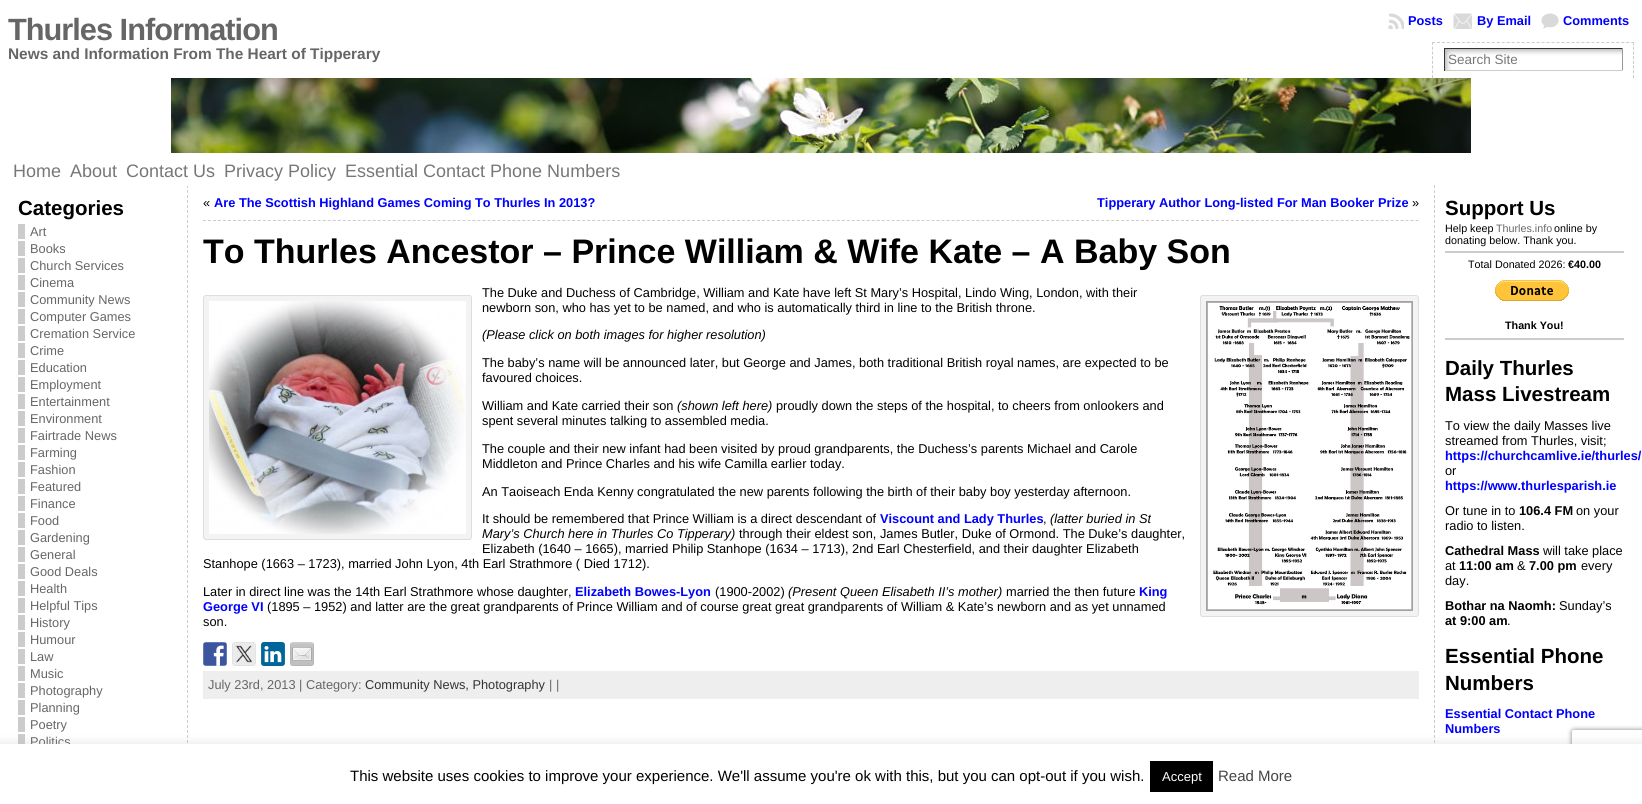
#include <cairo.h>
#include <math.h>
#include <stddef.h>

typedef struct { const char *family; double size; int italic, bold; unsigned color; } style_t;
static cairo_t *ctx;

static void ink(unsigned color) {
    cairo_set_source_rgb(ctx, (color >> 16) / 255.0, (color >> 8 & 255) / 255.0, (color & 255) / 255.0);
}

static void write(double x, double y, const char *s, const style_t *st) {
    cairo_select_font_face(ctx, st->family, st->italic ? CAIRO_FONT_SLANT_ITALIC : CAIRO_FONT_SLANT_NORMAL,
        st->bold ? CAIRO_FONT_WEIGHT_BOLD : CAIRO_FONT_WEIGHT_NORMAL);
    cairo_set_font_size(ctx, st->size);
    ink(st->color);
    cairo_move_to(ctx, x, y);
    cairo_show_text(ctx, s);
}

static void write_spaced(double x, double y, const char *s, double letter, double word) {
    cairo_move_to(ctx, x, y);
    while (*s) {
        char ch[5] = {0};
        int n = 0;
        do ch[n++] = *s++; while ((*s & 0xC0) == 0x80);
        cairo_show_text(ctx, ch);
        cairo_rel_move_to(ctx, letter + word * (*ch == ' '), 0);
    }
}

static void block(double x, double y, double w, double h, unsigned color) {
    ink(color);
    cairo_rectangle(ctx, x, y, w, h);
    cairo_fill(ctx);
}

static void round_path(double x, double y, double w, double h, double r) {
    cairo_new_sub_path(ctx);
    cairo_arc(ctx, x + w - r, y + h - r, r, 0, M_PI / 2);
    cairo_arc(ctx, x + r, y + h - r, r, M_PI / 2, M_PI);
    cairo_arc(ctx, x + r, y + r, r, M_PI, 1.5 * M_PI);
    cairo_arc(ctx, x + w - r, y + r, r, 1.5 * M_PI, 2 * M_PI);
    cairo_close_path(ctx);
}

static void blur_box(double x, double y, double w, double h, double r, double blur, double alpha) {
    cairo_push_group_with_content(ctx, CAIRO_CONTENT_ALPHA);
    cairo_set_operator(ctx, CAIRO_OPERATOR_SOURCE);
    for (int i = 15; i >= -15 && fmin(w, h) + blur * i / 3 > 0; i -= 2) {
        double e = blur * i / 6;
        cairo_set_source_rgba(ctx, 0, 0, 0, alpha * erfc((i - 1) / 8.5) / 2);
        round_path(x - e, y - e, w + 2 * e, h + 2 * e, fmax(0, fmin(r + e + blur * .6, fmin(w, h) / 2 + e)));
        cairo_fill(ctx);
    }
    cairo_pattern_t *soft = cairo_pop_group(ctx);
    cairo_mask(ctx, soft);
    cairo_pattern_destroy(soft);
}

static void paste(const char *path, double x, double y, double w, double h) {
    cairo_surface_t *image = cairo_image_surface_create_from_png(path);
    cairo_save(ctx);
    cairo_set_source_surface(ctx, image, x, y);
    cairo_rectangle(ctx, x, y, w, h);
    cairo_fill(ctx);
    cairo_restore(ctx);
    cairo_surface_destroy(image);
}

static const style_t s1 = {"Liberation Sans", 15.4, 0, 1, 0x666666};
static const style_t s2 = {"Liberation Sans", 12.8, 0, 1, 0x0000ff};
static const style_t s3 = {"Liberation Sans", 13.5, 0, 0, 0x777777};
static const style_t s4 = {"Liberation Sans", 18, 0, 0, 0x777777};
static const style_t s5 = {"Liberation Sans", 20.5, 0, 1, 0x000000};
static const style_t s6 = {"Liberation Sans", 12.8, 0, 0, 0x666666};
static const style_t s7 = {"Liberation Sans", 12.8, 0, 0, 0x000000};
static const style_t s8 = {"Liberation Sans", 34, 0, 1, 0x000000};
static const style_t s9 = {"Liberation Sans", 12.8, 1, 0, 0x000000};
static const style_t s10 = {"Liberation Sans", 12.8, 0, 0, 0x333333};
static const style_t s11 = {"Liberation Sans", 10.75, 0, 0, 0x000000};
static const style_t s12 = {"Liberation Sans", 10.75, 0, 0, 0x666666};
static const style_t s13 = {"Liberation Sans", 10.75, 0, 1, 0x000000};
static const style_t s14 = {"Liberation Sans", 12.8, 0, 1, 0x000000};
static const style_t s15 = {"Liberation Sans", 15, 0, 0, 0x000000};
static const style_t s16 = {"Liberation Sans", 13, 0, 0, 0xffffff};
static const style_t s17 = {"Liberation Sans", 15, 0, 0, 0x444444};

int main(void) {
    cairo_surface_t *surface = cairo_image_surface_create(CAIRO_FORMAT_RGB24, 1642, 804);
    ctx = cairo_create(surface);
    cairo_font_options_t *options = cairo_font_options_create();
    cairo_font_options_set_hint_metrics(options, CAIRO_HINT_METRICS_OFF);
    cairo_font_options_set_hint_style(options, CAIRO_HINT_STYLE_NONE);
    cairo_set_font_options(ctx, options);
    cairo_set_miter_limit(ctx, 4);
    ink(0xffffff);
    cairo_paint(ctx);
    cairo_select_font_face(ctx, "Liberation Sans", CAIRO_FONT_SLANT_NORMAL, CAIRO_FONT_WEIGHT_BOLD);
    cairo_set_font_size(ctx, 30.75);
    ink(0x666666);
    write_spaced(8, 40, "Thurles Information", -1, 0);
    write(8, 59, "News and Information From The Heart of Tipperary", &s1);
    paste("pic1.png", 1388, 13, 16, 16);
    write(1408, 25, "Posts", &s2);
    paste("pic2.png", 1453, 13, 19, 16);
    write(1477, 25, "By Email", &s2);
    paste("pic3.png", 1541, 13, 18, 16);
    write(1563, 25, "Comments", &s2);
    cairo_new_path(ctx);
    cairo_move_to(ctx, 1432, 42.5);
    cairo_line_to(ctx, 1634, 42.5);
    ink(0xcccccc);
    cairo_set_line_width(ctx, 1);
    cairo_set_dash(ctx, (double[]){3, 1.98}, 2, 0);
    cairo_stroke(ctx);
    cairo_new_path(ctx);
    cairo_move_to(ctx, 1633.5, 42);
    cairo_line_to(ctx, 1633.5, 78);
    cairo_set_dash(ctx, (double[]){3, 1.71}, 2, 0);
    cairo_stroke(ctx);
    cairo_new_path(ctx);
    cairo_move_to(ctx, 1432.5, 42);
    cairo_line_to(ctx, 1432.5, 78);
    cairo_stroke(ctx);
    paste("pic4.png", 1445, 49, 177, 21);
    block(1444, 48, 179, 1, 0x333333);
    block(1622, 48, 1, 23, 0x999999);
    block(1444, 70, 179, 1, 0xcccccc);
    block(1444, 48, 1, 23, 0x333333);
    write(1448, 64, "Search Site", &s3);
    paste("pic5.png", 171, 78, 1300, 75);
    write(13, 177, "Home", &s4);
    write(70, 177, "About", &s4);
    cairo_new_path(ctx);
    cairo_move_to(ctx, 187.5, 185);
    cairo_line_to(ctx, 187.5, 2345);
    ink(0xcccccc);
    cairo_set_dash(ctx, (double[]){3, 2}, 2, 0);
    cairo_stroke(ctx);
    block(187, 185, 1, 1, 0xffffff);
    write(126, 177, "Contact Us", &s4);
    write(224, 177, "Privacy Policy", &s4);
    write(345, 177, "Essential Contact Phone Numbers", &s4);
    write(18, 215, "Categories", &s5);
    write(30, 236, "Art", &s6);
    block(18, 224, 7, 15, 0xcccccc);
    write(30, 253, "Books", &s6);
    block(18, 241, 7, 15, 0xcccccc);
    write(30, 270, "Church Services", &s6);
    block(18, 258, 7, 15, 0xcccccc);
    write(30, 287, "Cinema", &s6);
    block(18, 275, 7, 15, 0xcccccc);
    write(30, 304, "Community News", &s6);
    block(18, 292, 7, 15, 0xcccccc);
    write(30, 321, "Computer Games", &s6);
    block(18, 309, 7, 15, 0xcccccc);
    write(30, 338, "Cremation Service", &s6);
    block(18, 326, 7, 15, 0xcccccc);
    write(30, 355, "Crime", &s6);
    block(18, 343, 7, 15, 0xcccccc);
    write(30, 372, "Education", &s6);
    block(18, 360, 7, 15, 0xcccccc);
    write(30, 389, "Employment", &s6);
    block(18, 377, 7, 15, 0xcccccc);
    write(30, 406, "Entertainment", &s6);
    block(18, 394, 7, 15, 0xcccccc);
    write(30, 423, "Environment", &s6);
    block(18, 411, 7, 15, 0xcccccc);
    write(30, 440, "Fairtrade News", &s6);
    block(18, 428, 7, 15, 0xcccccc);
    write(30, 457, "Farming", &s6);
    block(18, 445, 7, 15, 0xcccccc);
    write(30, 474, "Fashion", &s6);
    block(18, 462, 7, 15, 0xcccccc);
    write(30, 491, "Featured", &s6);
    block(18, 479, 7, 15, 0xcccccc);
    write(30, 508, "Finance", &s6);
    block(18, 496, 7, 15, 0xcccccc);
    write(30, 525, "Food", &s6);
    block(18, 513, 7, 15, 0xcccccc);
    write(30, 542, "Gardening", &s6);
    block(18, 530, 7, 15, 0xcccccc);
    write(30, 559, "General", &s6);
    block(18, 547, 7, 15, 0xcccccc);
    write(30, 576, "Good Deals", &s6);
    block(18, 564, 7, 15, 0xcccccc);
    write(30, 593, "Health", &s6);
    block(18, 581, 7, 15, 0xcccccc);
    write(30, 610, "Helpful Tips", &s6);
    block(18, 598, 7, 15, 0xcccccc);
    write(30, 627, "History", &s6);
    block(18, 615, 7, 15, 0xcccccc);
    write(30, 644, "Humour", &s6);
    block(18, 632, 7, 15, 0xcccccc);
    write(30, 661, "Law", &s6);
    block(18, 649, 7, 15, 0xcccccc);
    write(30, 678, "Music", &s6);
    block(18, 666, 7, 15, 0xcccccc);
    write(30, 695, "Photography", &s6);
    block(18, 683, 7, 15, 0xcccccc);
    write(30, 712, "Planning", &s6);
    block(18, 700, 7, 15, 0xcccccc);
    write(30, 729, "Poetry", &s6);
    block(18, 717, 7, 15, 0xcccccc);
    write(30, 746, "Politics", &s6);
    block(18, 734, 7, 15, 0xcccccc);
    cairo_new_path(ctx);
    cairo_move_to(ctx, 203, 220.5);
    cairo_line_to(ctx, 1419, 220.5);
    cairo_set_dash(ctx, (double[]){3, 1.99}, 2, 0);
    cairo_stroke(ctx);
    write(203, 207, "«", &s7);
    write(214, 207, "Are The Scottish Highland Games Coming To Thurles In 2013?", &s2);
    write(1097, 207, "Tipperary Author Long-listed For Man Booker Prize", &s2);
    write(1412, 207, "»", &s7);
    write(203, 263, "To Thurles Ancestor – Prince William & Wife Kate – A Baby Son", &s8);
    write(482, 297, "The Duke and Duchess of Cambridge, William and Kate have left St Mary’s Hospital, Lindo Wing, London, with their", &s7);
    ink(0xf3f3f3);
    round_path(203.5, 295.5, 268, 244, 2.5);
    cairo_fill_preserve(ctx);
    ink(0xdddddd);
    cairo_set_dash(ctx, NULL, 0, 0);
    cairo_stroke(ctx);
    paste("pic6.png", 209, 301, 257, 233);
    write(482, 312, "newborn son, who has yet to be named, and who is automatically third in line to the British throne.", &s7);
    ink(0xf3f3f3);
    round_path(1200.5, 295.5, 218, 321, 2.5);
    cairo_fill_preserve(ctx);
    ink(0xdddddd);
    cairo_stroke(ctx);
    paste("pic7.png", 1206, 301, 207, 310);
    write(482, 339, "(Please click on both images for higher resolution)", &s9);
    write(482, 367, "The baby’s name will be announced later, but George and James, both traditional British royal names, are expected to be", &s7);
    write(482, 382, "favoured choices.", &s7);
    write(482, 410, "William and Kate carried their son", &s7);
    write(677, 410, "(shown left here)", &s9);
    write(776, 410, "proudly down the steps of the hospital, to cheers from onlookers and", &s7);
    write(482, 425, "spent several minutes talking to assembled media.", &s7);
    write(482, 453, "The couple and their new infant had been visited by proud grandparents, the Duchess’s parents Michael and Carole", &s7);
    write(482, 468, "Middleton and Prince Charles and his wife Camilla earlier today.", &s7);
    write(482, 496, "An Taoiseach Enda Kenny congratulated the new parents following the birth of their baby boy yesterday afternoon.", &s7);
    write(482, 523, "It should be remembered that Prince William is a direct descendant of", &s7);
    write(880, 523, "Viscount and Lady Thurles", &s2);
    write(1043, 523, ",", &s7);
    write(1050, 523, "(latter buried in St", &s9);
    write(482, 538, "Mary’s Church here in Thurles Co Tipperary)", &s9);
    write(739, 538, "through their eldest son, James Butler, Duke of Ormond. The Duke’s daughter,", &s7);
    write(482, 553, "Elizabeth (1640 – 1665), married Philip Stanhope (1634 – 1713), 2nd Earl Chesterfield, and their daughter Elizabeth", &s7);
    write(203, 568, "Stanhope (1663 – 1723), married John Lyon, 4th Earl Strathmore ( Died 1712).", &s7);
    write(203, 596, "Later in direct line was the 14th Earl Strathmore whose daughter,", &s7);
    write(575, 596, "Elizabeth Bowes-Lyon", &s2);
    write(715, 596, "(1900-2002)", &s7);
    write(788, 596, "(Present Queen Elisabeth II’s mother)", &s9);
    write(1006, 596, "married the then future", &s7);
    write(1139, 596, "King", &s2);
    write(203, 611, "George VI", &s2);
    write(267, 611, "(1895 – 1952) and latter are the great grandparents of Prince William and of course great great grandparents of William & Kate’s newborn and as yet unnamed", &s7);
    write(203, 626, "son.", &s7);
    paste("pic8.png", 203, 642, 24, 24);
    paste("pic9.png", 232, 642, 24, 24);
    paste("pic10.png", 261, 642, 24, 24);
    paste("pic11.png", 290, 642, 24, 24);
    block(203, 671, 1216, 28, 0xeeeeee);
    write(208, 689, "July 23rd, 2013 | Category:", &s6);
    write(365, 689, "Community News, Photography", &s10);
    write(549, 689, "| |", &s6);
    cairo_new_path(ctx);
    cairo_move_to(ctx, 1434.5, 185);
    cairo_line_to(ctx, 1434.5, 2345);
    ink(0xcccccc);
    cairo_set_dash(ctx, (double[]){3, 2}, 2, 0);
    cairo_stroke(ctx);
    write(1445, 215, "Support Us", &s5);
    write(1445, 232, "Help keep", &s11);
    write(1496, 232, "Thurles.info", &s12);
    write(1554, 232, "online by", &s11);
    write(1445, 244, "donating below. Thank you.", &s11);
    block(1445, 251, 179, 2, 0xcccccc);
    write(1468, 268, "Total Donated 2026:", &s11);
    write(1568, 268, "€40.00", &s13);
    paste("pic12.png", 1495, 280, 74, 21);
    write(1505, 329, "Thank You!", &s13);
    block(1445, 338, 179, 2, 0xcccccc);
    write(1445, 375, "Daily Thurles", &s5);
    write(1445, 401, "Mass Livestream", &s5);
    write(1445, 430, "To view the daily Masses live", &s7);
    write(1445, 445, "streamed from Thurles, visit;", &s7);
    write(1445, 460, "https://churchcamlive.ie/thurles/", &s2);
    write(1445, 475, "or", &s7);
    write(1445, 490, "https://www.thurlesparish.ie", &s2);
    write(1445, 515, "Or tune in to", &s7);
    write(1519, 515, "106.4 FM", &s14);
    write(1576, 515, "on your", &s7);
    write(1445, 530, "radio to listen.", &s7);
    write(1445, 555, "Cathedral Mass", &s14);
    write(1543, 555, "will take place", &s7);
    write(1445, 570, "at", &s7);
    write(1459, 570, "11:00 am", &s14);
    write(1517, 570, "&", &s7);
    write(1529, 570, "7.00 pm", &s14);
    write(1581, 570, "every", &s7);
    write(1445, 585, "day.", &s7);
    write(1445, 610, "Bothar na Naomh:", &s14);
    write(1559, 610, "Sunday’s", &s7);
    write(1445, 625, "at 9:00 am", &s14);
    write(1507, 625, ".", &s7);
    write(1445, 663, "Essential Phone", &s5);
    write(1445, 690, "Numbers", &s5);
    write(1445, 718, "Essential Contact Phone", &s2);
    write(1445, 733, "Numbers", &s2);
    ink(0xacabab);
    blur_box(0, 743, 1642, 60, 0, 5, 0.3);
    cairo_save(ctx);
    cairo_set_fill_rule(ctx, CAIRO_FILL_RULE_EVEN_ODD);
    cairo_new_path(ctx);
    cairo_move_to(ctx, 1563, 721);
    cairo_line_to(ctx, 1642, 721);
    cairo_line_to(ctx, 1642, 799);
    cairo_line_to(ctx, 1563, 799);
    cairo_close_path(ctx);
    cairo_move_to(ctx, 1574, 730);
    cairo_line_to(ctx, 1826, 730);
    cairo_curve_to(ctx, 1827, 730, 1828, 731, 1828, 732);
    cairo_line_to(ctx, 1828, 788);
    cairo_curve_to(ctx, 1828, 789, 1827, 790, 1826, 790);
    cairo_line_to(ctx, 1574, 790);
    cairo_curve_to(ctx, 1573, 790, 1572, 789, 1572, 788);
    cairo_line_to(ctx, 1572, 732);
    cairo_curve_to(ctx, 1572, 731, 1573, 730, 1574, 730);
    cairo_close_path(ctx);
    cairo_clip(ctx);
    ink(0x808080);
    blur_box(1572, 730, 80, 60, 2, 2.5, 1);
    cairo_restore(ctx);
    block(0, 744, 1642, 60, 0xffffff);
    write(350, 781, "This website uses cookies to improve your experience. We'll assume you're ok with this, but you can opt-out if you wish.", &s15);
    block(1150, 761, 63, 31, 0x000000);
    write(1162, 781, "Accept", &s16);
    write(1218, 781, "Read More", &s17);
    cairo_surface_write_to_png(surface, "screenshot.png");
    cairo_font_options_destroy(options);
    cairo_destroy(ctx);
    cairo_surface_destroy(surface);
    return 0;
}
